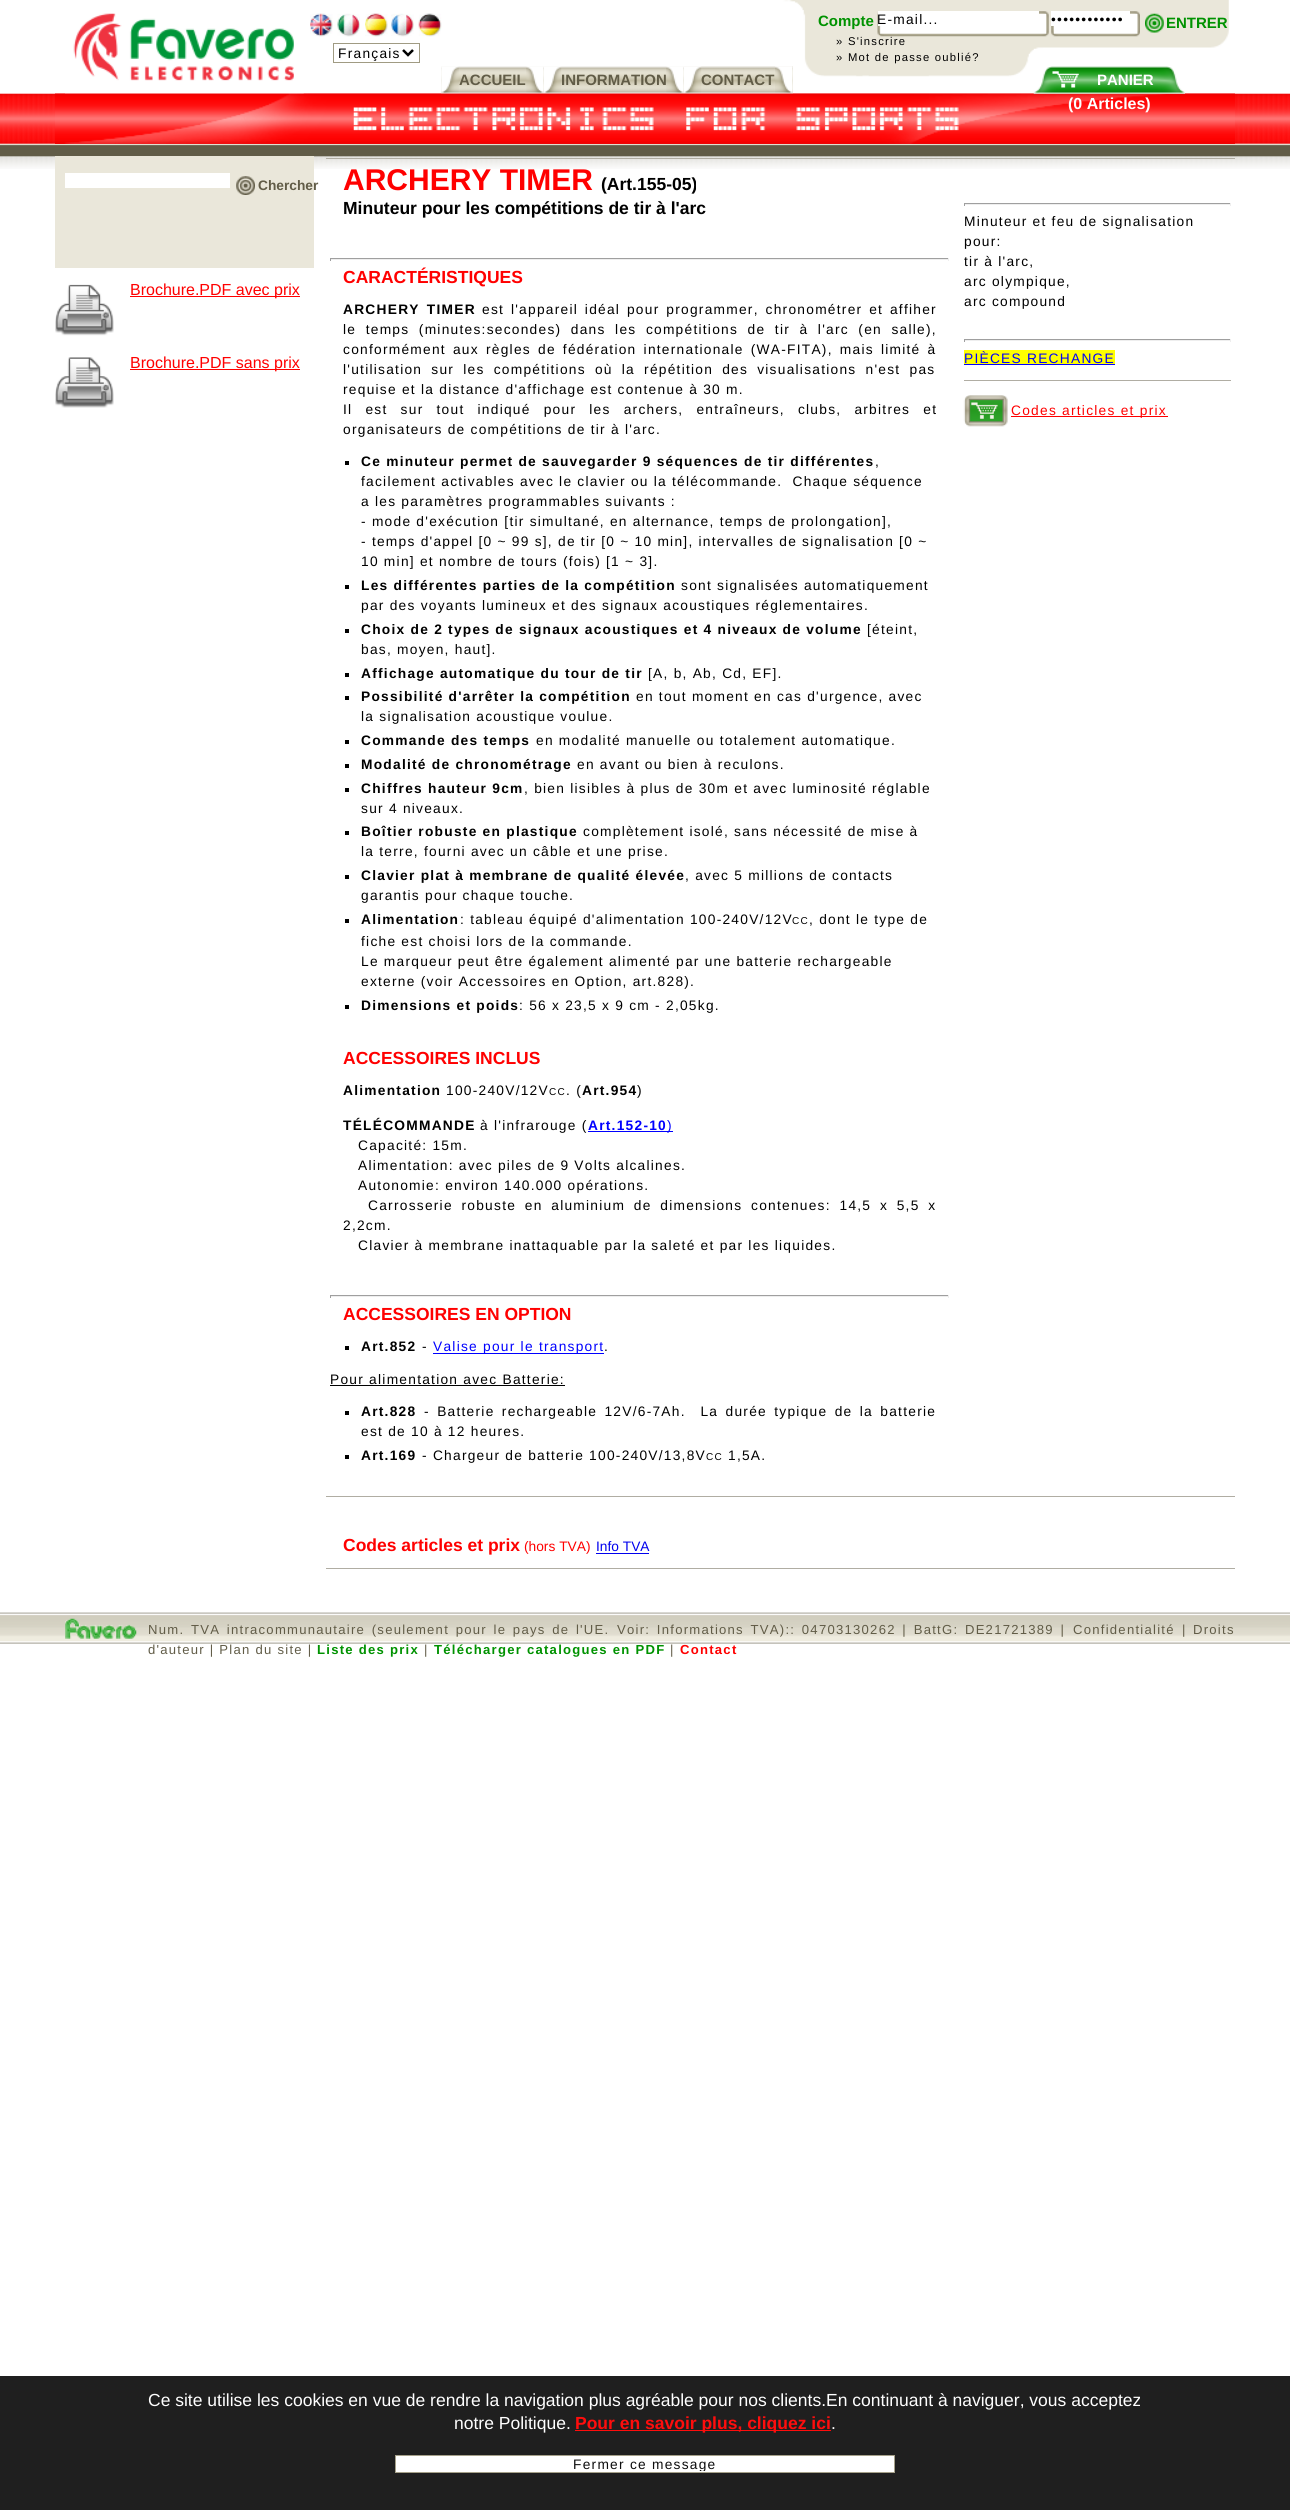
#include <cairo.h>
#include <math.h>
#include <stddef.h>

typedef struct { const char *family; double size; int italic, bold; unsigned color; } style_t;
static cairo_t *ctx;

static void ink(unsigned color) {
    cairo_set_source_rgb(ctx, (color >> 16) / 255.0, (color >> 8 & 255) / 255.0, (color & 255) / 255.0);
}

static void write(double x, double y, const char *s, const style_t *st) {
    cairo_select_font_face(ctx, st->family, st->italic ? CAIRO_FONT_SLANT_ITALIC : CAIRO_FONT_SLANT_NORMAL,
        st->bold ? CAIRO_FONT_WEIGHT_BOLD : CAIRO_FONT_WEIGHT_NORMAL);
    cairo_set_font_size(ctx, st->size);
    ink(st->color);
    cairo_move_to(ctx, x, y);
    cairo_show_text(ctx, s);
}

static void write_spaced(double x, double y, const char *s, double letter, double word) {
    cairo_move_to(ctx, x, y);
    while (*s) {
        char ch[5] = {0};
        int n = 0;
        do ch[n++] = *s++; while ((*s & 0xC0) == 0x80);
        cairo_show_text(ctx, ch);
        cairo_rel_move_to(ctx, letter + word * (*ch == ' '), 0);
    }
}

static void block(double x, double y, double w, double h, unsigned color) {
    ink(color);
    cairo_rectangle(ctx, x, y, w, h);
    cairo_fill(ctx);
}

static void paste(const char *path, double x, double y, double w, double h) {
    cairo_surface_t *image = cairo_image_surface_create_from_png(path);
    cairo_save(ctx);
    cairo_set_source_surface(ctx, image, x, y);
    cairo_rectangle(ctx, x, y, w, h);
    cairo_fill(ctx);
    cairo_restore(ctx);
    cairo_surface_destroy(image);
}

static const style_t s1 = {"Liberation Sans", 15, 0, 1, 0x009200};
static const style_t s2 = {"Liberation Sans", 15, 0, 1, 0x615c47};
static const style_t s3 = {"Liberation Sans", 15, 0, 1, 0xffffff};
static const style_t s4 = {"Liberation Sans", 16, 0, 1, 0xffffff};
static const style_t s5 = {"Liberation Sans", 13.75, 0, 1, 0x615c47};
static const style_t s6 = {"Liberation Sans", 30, 0, 1, 0xff0000};
static const style_t s7 = {"Liberation Sans", 17.5, 0, 1, 0x000000};
static const style_t s8 = {"Liberation Sans", 17.5, 0, 1, 0xff0000};
static const style_t s9 = {"Liberation Sans", 13.75, 0, 0, 0xff0000};
static const style_t s10 = {"Liberation Sans", 13.75, 0, 0, 0x0000ee};
static const style_t s11 = {"Liberation Sans", 16, 0, 0, 0xff0000};
static const style_t s12 = {"Liberation Sans", 17.5, 0, 0, 0xffffff};
static const style_t s13 = {"Liberation Sans", 17.5, 0, 1, 0xff0d0d};

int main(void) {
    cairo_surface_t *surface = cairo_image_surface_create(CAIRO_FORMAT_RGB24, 1290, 2510);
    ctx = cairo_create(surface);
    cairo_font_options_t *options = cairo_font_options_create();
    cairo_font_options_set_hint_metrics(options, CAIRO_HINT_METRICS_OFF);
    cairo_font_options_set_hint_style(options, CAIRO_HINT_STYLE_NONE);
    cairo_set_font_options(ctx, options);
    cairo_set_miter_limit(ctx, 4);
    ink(0xffffff);
    cairo_paint(ctx);
    paste("pic1.png", 0, 93, 1290, 76);
    paste("pic2.png", 0, 1612, 1290, 32);
    paste("pic3.png", 65, 13, 239, 81);
    paste("pic4.png", 310, 13, 23, 24);
    paste("pic5.png", 337, 13, 23, 24);
    paste("pic6.png", 365, 13, 23, 24);
    paste("pic7.png", 391, 13, 23, 24);
    paste("pic8.png", 418, 13, 24, 24);
    cairo_rectangle(ctx, 333.5, 43.5, 86, 19);
    ink(0xa09b83);
    cairo_set_line_width(ctx, 1);
    cairo_stroke(ctx);
    cairo_new_path(ctx);
    cairo_move_to(ctx, 403, 50);
    cairo_line_to(ctx, 408, 55);
    cairo_line_to(ctx, 413, 50);
    ink(0x000000);
    cairo_set_line_width(ctx, 2.5);
    cairo_stroke(ctx);
    cairo_select_font_face(ctx, "Liberation Sans", CAIRO_FONT_SLANT_NORMAL, CAIRO_FONT_WEIGHT_NORMAL);
    cairo_set_font_size(ctx, 13.75);
    write_spaced(338, 58, "Français", 1.25, 0);
    paste("pic9.png", 780, 0, 455, 77);
    write(818, 26, "Compte", &s1);
    paste("pic10.png", 877, 11, 172, 26);
    block(878, 11, 161, 15, 0xffffff);
    cairo_select_font_face(ctx, "Liberation Sans", CAIRO_FONT_SLANT_NORMAL, CAIRO_FONT_WEIGHT_NORMAL);
    cairo_set_font_size(ctx, 13.75);
    ink(0x000000);
    write_spaced(877, 24, "E-mail...", 1.25, 0);
    paste("pic11.png", 1051, 11, 89, 26);
    block(1051, 11, 79, 15, 0xffffff);
    ink(0x000000);
    write_spaced(1051, 24, "••••••••••••", 1.25, 0);
    paste("pic12.png", 1145, 13, 19, 20);
    write(1166, 28, "ENTRER", &s1);
    cairo_select_font_face(ctx, "Liberation Sans", CAIRO_FONT_SLANT_NORMAL, CAIRO_FONT_WEIGHT_NORMAL);
    cairo_set_font_size(ctx, 11.25);
    ink(0x000000);
    write_spaced(836, 45, "» S'inscrire", 1.25, 0);
    write_spaced(836, 61, "» Mot de passe oublié?", 1.25, 0);
    paste("pic13.png", 441, 66, 103, 28);
    paste("pic14.png", 441, 66, 18, 28);
    paste("pic15.png", 526, 66, 18, 28);
    write(459, 85, "ACCUEIL", &s2);
    paste("pic16.png", 543, 66, 141, 28);
    paste("pic17.png", 543, 66, 19, 28);
    paste("pic18.png", 666, 66, 18, 28);
    write(561, 85, "INFORMATION", &s2);
    block(684, 66, 109, 28, 0xeae7da);
    paste("pic19.png", 683, 66, 110, 28);
    paste("pic20.png", 683, 66, 19, 28);
    paste("pic21.png", 775, 66, 18, 28);
    write(701, 85, "CONTACT", &s2);
    paste("pic23.png", 55, 93, 1180, 51);
    paste("pic24.png", 55, 93, 1180, 51);
    paste("pic22.png", 1033, 66, 152, 28);
    write(1097, 85, "PANIER", &s3);
    write(1068, 109, "(0 Articles)", &s4);
    block(55, 156, 259, 112, 0xeae7da);
    block(65, 173, 165, 15, 0xffffff);
    paste("pic25.png", 236, 176, 19, 19);
    write(258, 190, "Chercher", &s5);
    block(326, 158, 909, 1, 0xb0ada3);
    write(343, 190, "ARCHERY TIMER", &s6);
    write(601, 190, "(Art.155-05)", &s7);
    write(343, 214, "Minuteur pour les compétitions de tir à l'arc", &s7);
    block(330, 258, 619, 1, 0x9f9f9f);
    block(948, 258, 1, 3, 0xeeeeee);
    block(330, 259, 619, 1, 0xeeeeee);
    block(330, 258, 1, 3, 0x9f9f9f);
    write(343, 283, "CARACTÉRISTIQUES", &s8);
    cairo_set_font_size(ctx, 13.75);
    ink(0x000000);
    write_spaced(343, 314, "ARCHERY TIMER", 1.25, 2);
    cairo_select_font_face(ctx, "Liberation Sans", CAIRO_FONT_SLANT_NORMAL, CAIRO_FONT_WEIGHT_NORMAL);
    write_spaced(482, 314, "est l'appareil idéal pour programmer, chronométrer et affiher", 1.25, 1.75);
    write_spaced(343, 334, "le temps (minutes:secondes) dans les compétitions de tir à l'arc (en salle),", 1.25, 4.4);
    write_spaced(343, 354, "conformément aux règles de fédération internationale (WA-FITA), mais limité à", 1.25, 2);
    write_spaced(343, 374, "l'utilisation sur les compétitions où la répétition des visualisations n'est pas", 1.25, 4);
    write_spaced(343, 394, "requise et la distance d'affichage est contenue à 30 m.", 1.25, 0);
    write_spaced(343, 414, "Il est sur tout indiqué pour les archers, entraîneurs, clubs, arbitres et", 1.25, 8);
    write_spaced(343, 434, "organisateurs de compétitions de tir à l'arc.", 1.25, 0);
    block(345, 461, 4, 4, 0x000000);
    cairo_select_font_face(ctx, "Liberation Sans", CAIRO_FONT_SLANT_NORMAL, CAIRO_FONT_WEIGHT_BOLD);
    write_spaced(361, 466, "Ce minuteur permet de sauvegarder 9 séquences de tir différentes", 1.25, 0);
    cairo_select_font_face(ctx, "Liberation Sans", CAIRO_FONT_SLANT_NORMAL, CAIRO_FONT_WEIGHT_NORMAL);
    write_spaced(875, 466, ",", 1.25, 0);
    write_spaced(361, 486, "facilement activables avec le clavier ou la télécommande.  Chaque séquence", 1.25, 0);
    write_spaced(361, 506, "a les paramètres programmables suivants :", 1.25, 0);
    write_spaced(361, 526, "- mode d'exécution [tir simultané, en alternance, temps de prolongation],", 1.25, 0);
    write_spaced(361, 546, "- temps d'appel [0 ~ 99 s], de tir [0 ~ 10 min], intervalles de signalisation [0 ~", 1.25, 0);
    write_spaced(361, 566, "10 min] et nombre de tours (fois) [1 ~ 3].", 1.25, 0);
    block(345, 585, 4, 4, 0x000000);
    cairo_select_font_face(ctx, "Liberation Sans", CAIRO_FONT_SLANT_NORMAL, CAIRO_FONT_WEIGHT_BOLD);
    write_spaced(361, 590, "Les différentes parties de la compétition", 1.25, 0);
    cairo_select_font_face(ctx, "Liberation Sans", CAIRO_FONT_SLANT_NORMAL, CAIRO_FONT_WEIGHT_NORMAL);
    write_spaced(681, 590, "sont signalisées automatiquement", 1.25, 0);
    write_spaced(361, 610, "par des voyants lumineux et des signaux acoustiques réglementaires.", 1.25, 0);
    block(345, 629, 4, 4, 0x000000);
    cairo_select_font_face(ctx, "Liberation Sans", CAIRO_FONT_SLANT_NORMAL, CAIRO_FONT_WEIGHT_BOLD);
    write_spaced(361, 634, "Choix de 2 types de signaux acoustiques et 4 niveaux de volume", 1.25, 0);
    cairo_select_font_face(ctx, "Liberation Sans", CAIRO_FONT_SLANT_NORMAL, CAIRO_FONT_WEIGHT_NORMAL);
    write_spaced(867, 634, "[éteint,", 1.25, 0);
    write_spaced(361, 654, "bas, moyen, haut].", 1.25, 0);
    block(345, 673, 4, 4, 0x000000);
    cairo_select_font_face(ctx, "Liberation Sans", CAIRO_FONT_SLANT_NORMAL, CAIRO_FONT_WEIGHT_BOLD);
    write_spaced(361, 678, "Affichage automatique du tour de tir", 1.25, 0);
    cairo_select_font_face(ctx, "Liberation Sans", CAIRO_FONT_SLANT_NORMAL, CAIRO_FONT_WEIGHT_NORMAL);
    write_spaced(648, 678, "[A, b, Ab, Cd, EF].", 1.25, 0);
    block(345, 696, 4, 4, 0x000000);
    cairo_select_font_face(ctx, "Liberation Sans", CAIRO_FONT_SLANT_NORMAL, CAIRO_FONT_WEIGHT_BOLD);
    write_spaced(361, 701, "Possibilité d'arrêter la compétition", 1.25, 0);
    cairo_select_font_face(ctx, "Liberation Sans", CAIRO_FONT_SLANT_NORMAL, CAIRO_FONT_WEIGHT_NORMAL);
    write_spaced(636, 701, "en tout moment en cas d'urgence, avec", 1.25, 0);
    write_spaced(361, 721, "la signalisation acoustique voulue.", 1.25, 0);
    block(345, 740, 4, 4, 0x000000);
    cairo_select_font_face(ctx, "Liberation Sans", CAIRO_FONT_SLANT_NORMAL, CAIRO_FONT_WEIGHT_BOLD);
    write_spaced(361, 745, "Commande des temps", 1.25, 0);
    cairo_select_font_face(ctx, "Liberation Sans", CAIRO_FONT_SLANT_NORMAL, CAIRO_FONT_WEIGHT_NORMAL);
    write_spaced(536, 745, "en modalité manuelle ou totalement automatique.", 1.25, 0);
    block(345, 764, 4, 4, 0x000000);
    cairo_select_font_face(ctx, "Liberation Sans", CAIRO_FONT_SLANT_NORMAL, CAIRO_FONT_WEIGHT_BOLD);
    write_spaced(361, 769, "Modalité de chronométrage", 1.25, 0);
    cairo_select_font_face(ctx, "Liberation Sans", CAIRO_FONT_SLANT_NORMAL, CAIRO_FONT_WEIGHT_NORMAL);
    write_spaced(577, 769, "en avant ou bien à reculons.", 1.25, 0);
    block(345, 788, 4, 4, 0x000000);
    cairo_select_font_face(ctx, "Liberation Sans", CAIRO_FONT_SLANT_NORMAL, CAIRO_FONT_WEIGHT_BOLD);
    write_spaced(361, 793, "Chiffres hauteur 9cm", 1.25, 0);
    cairo_select_font_face(ctx, "Liberation Sans", CAIRO_FONT_SLANT_NORMAL, CAIRO_FONT_WEIGHT_NORMAL);
    write_spaced(524, 793, ", bien lisibles à plus de 30m et avec luminosité réglable", 1.25, 0);
    write_spaced(361, 813, "sur 4 niveaux.", 1.25, 0);
    block(345, 831, 4, 4, 0x000000);
    cairo_select_font_face(ctx, "Liberation Sans", CAIRO_FONT_SLANT_NORMAL, CAIRO_FONT_WEIGHT_BOLD);
    write_spaced(361, 836, "Boîtier robuste en plastique", 1.25, 0);
    cairo_select_font_face(ctx, "Liberation Sans", CAIRO_FONT_SLANT_NORMAL, CAIRO_FONT_WEIGHT_NORMAL);
    write_spaced(583, 836, "complètement isolé, sans nécessité de mise à", 1.25, 0);
    write_spaced(361, 856, "la terre, fourni avec un câble et une prise.", 1.25, 0);
    block(345, 875, 4, 4, 0x000000);
    cairo_select_font_face(ctx, "Liberation Sans", CAIRO_FONT_SLANT_NORMAL, CAIRO_FONT_WEIGHT_BOLD);
    write_spaced(361, 880, "Clavier plat à membrane de qualité élevée", 1.25, 0);
    cairo_select_font_face(ctx, "Liberation Sans", CAIRO_FONT_SLANT_NORMAL, CAIRO_FONT_WEIGHT_NORMAL);
    write_spaced(685, 880, ", avec 5 millions de contacts", 1.25, 0);
    write_spaced(361, 900, "garantis pour chaque touche.", 1.25, 0);
    block(345, 919, 4, 4, 0x000000);
    cairo_select_font_face(ctx, "Liberation Sans", CAIRO_FONT_SLANT_NORMAL, CAIRO_FONT_WEIGHT_BOLD);
    write_spaced(361, 924, "Alimentation", 1.25, 0);
    cairo_select_font_face(ctx, "Liberation Sans", CAIRO_FONT_SLANT_NORMAL, CAIRO_FONT_WEIGHT_NORMAL);
    write_spaced(460, 924, ": tableau équipé d'alimentation 100-240V/12V", 1.25, 0);
    cairo_set_font_size(ctx, 10);
    write_spaced(792, 924, "CC", 1.25, 0);
    cairo_set_font_size(ctx, 13.75);
    write_spaced(809, 924, ", dont le type de", 1.25, 0);
    write_spaced(361, 946, "fiche est choisi lors de la commande.", 1.25, 0);
    write_spaced(361, 966, "Le marqueur peut être également alimenté par une batterie rechargeable", 1.25, 0);
    write_spaced(361, 986, "externe (voir Accessoires en Option, art.828).", 1.25, 0);
    block(345, 1005, 4, 4, 0x000000);
    cairo_select_font_face(ctx, "Liberation Sans", CAIRO_FONT_SLANT_NORMAL, CAIRO_FONT_WEIGHT_BOLD);
    write_spaced(361, 1010, "Dimensions et poids", 1.25, 0);
    cairo_select_font_face(ctx, "Liberation Sans", CAIRO_FONT_SLANT_NORMAL, CAIRO_FONT_WEIGHT_NORMAL);
    write_spaced(519, 1010, ": 56 x 23,5 x 9 cm - 2,05kg.", 1.25, 0);
    write(343, 1064, "ACCESSOIRES INCLUS", &s8);
    cairo_set_font_size(ctx, 13.75);
    ink(0x000000);
    write_spaced(343, 1095, "Alimentation", 1.25, 0);
    cairo_select_font_face(ctx, "Liberation Sans", CAIRO_FONT_SLANT_NORMAL, CAIRO_FONT_WEIGHT_NORMAL);
    write_spaced(446, 1095, "100-240V/12V", 1.25, 0);
    cairo_set_font_size(ctx, 10);
    write_spaced(549, 1095, "CC", 1.25, 0);
    cairo_set_font_size(ctx, 13.75);
    write_spaced(566, 1095, ". (", 1.25, 0);
    cairo_select_font_face(ctx, "Liberation Sans", CAIRO_FONT_SLANT_NORMAL, CAIRO_FONT_WEIGHT_BOLD);
    write_spaced(582, 1095, "Art.954", 1.25, 0);
    cairo_select_font_face(ctx, "Liberation Sans", CAIRO_FONT_SLANT_NORMAL, CAIRO_FONT_WEIGHT_NORMAL);
    write_spaced(637, 1095, ")", 1.25, 0);
    cairo_select_font_face(ctx, "Liberation Sans", CAIRO_FONT_SLANT_NORMAL, CAIRO_FONT_WEIGHT_BOLD);
    write_spaced(343, 1130, "TÉLÉCOMMANDE", 1.25, 0);
    cairo_select_font_face(ctx, "Liberation Sans", CAIRO_FONT_SLANT_NORMAL, CAIRO_FONT_WEIGHT_NORMAL);
    write_spaced(480, 1130, "à l'infrarouge (", 1.25, 0);
    cairo_select_font_face(ctx, "Liberation Sans", CAIRO_FONT_SLANT_NORMAL, CAIRO_FONT_WEIGHT_BOLD);
    ink(0x0000ff);
    write_spaced(588, 1130, "Art.152-10", 1.25, 0);
    block(588, 1131, 85, 1, 0x0000ff);
    cairo_select_font_face(ctx, "Liberation Sans", CAIRO_FONT_SLANT_NORMAL, CAIRO_FONT_WEIGHT_NORMAL);
    write_spaced(667, 1130, ")", 1.25, 0);
    ink(0x000000);
    write_spaced(358, 1150, "Capacité: 15m.", 1.25, 0);
    write_spaced(358, 1170, "Alimentation: avec piles de 9 Volts alcalines.", 1.25, 0);
    write_spaced(358, 1190, "Autonomie: environ 140.000 opérations.", 1.25, 0);
    write_spaced(368, 1210, "Carrosserie robuste en aluminium de dimensions contenues: 14,5 x 5,5 x", 1.25, 3.6);
    write_spaced(343, 1230, "2,2cm.", 1.25, 0);
    write_spaced(358, 1250, "Clavier à membrane inattaquable par la saleté et par les liquides.", 1.25, 0);
    block(330, 1295, 619, 1, 0x9f9f9f);
    block(948, 1295, 1, 3, 0xeeeeee);
    block(330, 1296, 619, 1, 0xeeeeee);
    block(330, 1295, 1, 3, 0x9f9f9f);
    write(343, 1320, "ACCESSOIRES EN OPTION", &s8);
    block(345, 1346, 4, 4, 0x000000);
    cairo_set_font_size(ctx, 13.75);
    write_spaced(361, 1351, "Art.852", 1.25, 0);
    cairo_select_font_face(ctx, "Liberation Sans", CAIRO_FONT_SLANT_NORMAL, CAIRO_FONT_WEIGHT_NORMAL);
    write_spaced(422, 1351, "-", 1.25, 0);
    block(433, 1353, 171, 1, 0x0000ff);
    write_spaced(433, 1351, "Valise pour le transport", 1.25, 0);
    ink(0x000000);
    write_spaced(604, 1351, ".", 1.25, 0);
    write_spaced(330, 1384, "Pour alimentation avec Batterie:", 1.25, 0);
    block(330, 1385, 235, 1, 0x000000);
    block(345, 1411, 4, 4, 0x000000);
    cairo_select_font_face(ctx, "Liberation Sans", CAIRO_FONT_SLANT_NORMAL, CAIRO_FONT_WEIGHT_BOLD);
    write_spaced(361, 1416, "Art.828", 1.25, 0);
    cairo_select_font_face(ctx, "Liberation Sans", CAIRO_FONT_SLANT_NORMAL, CAIRO_FONT_WEIGHT_NORMAL);
    write_spaced(424, 1416, "- Batterie rechargeable 12V/6-7Ah.  La durée typique de la batterie", 1.25, 2.25);
    write_spaced(361, 1436, "est de 10 à 12 heures.", 1.25, 0);
    block(345, 1455, 4, 4, 0x000000);
    cairo_select_font_face(ctx, "Liberation Sans", CAIRO_FONT_SLANT_NORMAL, CAIRO_FONT_WEIGHT_BOLD);
    write_spaced(361, 1460, "Art.169", 1.25, 0);
    cairo_select_font_face(ctx, "Liberation Sans", CAIRO_FONT_SLANT_NORMAL, CAIRO_FONT_WEIGHT_NORMAL);
    write_spaced(422, 1460, "- Chargeur de batterie 100-240V/13,8V", 1.25, 0);
    cairo_set_font_size(ctx, 10);
    write_spaced(706, 1460, "CC", 1.25, 0);
    cairo_set_font_size(ctx, 13.75);
    write_spaced(728, 1460, "1,5A.", 1.25, 0);
    block(964, 203, 267, 1, 0x9f9f9f);
    block(1230, 203, 1, 3, 0xeeeeee);
    block(964, 204, 267, 1, 0xeeeeee);
    block(964, 203, 1, 3, 0x9f9f9f);
    ink(0x000000);
    write_spaced(964, 226, "Minuteur et feu de signalisation", 1.25, 0);
    write_spaced(964, 246, "pour:", 1.25, 0);
    write_spaced(964, 266, "tir à l'arc,", 1.25, 0);
    write_spaced(964, 286, "arc olympique,", 1.25, 0);
    write_spaced(964, 306, "arc compound", 1.25, 0);
    block(964, 339, 267, 1, 0x9f9f9f);
    block(1230, 339, 1, 3, 0xeeeeee);
    block(964, 340, 267, 1, 0xeeeeee);
    block(964, 339, 1, 3, 0x9f9f9f);
    block(964, 350, 151, 14, 0xffff00);
    ink(0x0000ff);
    write_spaced(964, 363, "PIÈCES RECHANGE", 1.25, 0);
    block(964, 364, 151, 1, 0x0000ff);
    block(964, 380, 267, 1, 0xb0ada3);
    paste("pic26.png", 963, 395, 45, 32);
    block(1011, 416, 157, 1, 0xff0000);
    write_spaced(1011, 415, "Codes articles et prix", 1.25, 0);
    block(326, 1496, 909, 1, 0xb0ada3);
    block(326, 1568, 909, 1, 0xb0ada3);
    write(343, 1551, "Codes articles et prix", &s8);
    write(524, 1551, "(hors TVA)", &s9);
    write(596, 1551, "Info TVA", &s10);
    block(596, 1553, 53, 1, 0x0000ee);
    paste("pic27.png", 55, 284, 59, 52);
    block(130, 296, 170, 1, 0xff0000);
    write(130, 295, "Brochure.PDF avec prix", &s11);
    paste("pic28.png", 55, 357, 59, 51);
    block(130, 369, 170, 1, 0xff0000);
    write(130, 368, "Brochure.PDF sans prix", &s11);
    paste("pic29.png", 65, 1618, 72, 21);
    cairo_set_font_size(ctx, 13.1);
    ink(0x615c47);
    write_spaced(148, 1634, "Num. TVA intracommunautaire (seulement pour le pays de l'UE.", 1.25, 1.75);
    write_spaced(617, 1634, "Voir: Informations TVA):: 04703130262 | BattG: DE21721389 |", 1.25, 1.75);
    write_spaced(1073, 1634, "Confidentialité", 1.25, 0);
    write_spaced(1182, 1634, "|", 1.25, 0);
    write_spaced(1193, 1634, "Droits", 1.25, 0);
    write_spaced(148, 1654, "d'auteur | Plan du site |", 1.25, 0);
    cairo_select_font_face(ctx, "Liberation Sans", CAIRO_FONT_SLANT_NORMAL, CAIRO_FONT_WEIGHT_BOLD);
    ink(0x009200);
    write_spaced(317, 1654, "Liste des prix", 1.25, 0);
    cairo_select_font_face(ctx, "Liberation Sans", CAIRO_FONT_SLANT_NORMAL, CAIRO_FONT_WEIGHT_NORMAL);
    ink(0x615c47);
    write_spaced(424, 1654, "|", 1.25, 0);
    cairo_select_font_face(ctx, "Liberation Sans", CAIRO_FONT_SLANT_NORMAL, CAIRO_FONT_WEIGHT_BOLD);
    ink(0x009200);
    write_spaced(434, 1654, "Télécharger catalogues en PDF", 1.25, 0);
    cairo_select_font_face(ctx, "Liberation Sans", CAIRO_FONT_SLANT_NORMAL, CAIRO_FONT_WEIGHT_NORMAL);
    ink(0x615c47);
    write_spaced(670, 1654, "|", 1.25, 0);
    cairo_select_font_face(ctx, "Liberation Sans", CAIRO_FONT_SLANT_NORMAL, CAIRO_FONT_WEIGHT_BOLD);
    ink(0xff0000);
    write_spaced(680, 1654, "Contact", 1.25, 0);
    block(0, 2376, 1290, 134, 0x1f1f1f);
    write(148, 2406, "Ce site utilise les cookies en vue de rendre la navigation plus agréable pour nos clients.En continuant à naviguer, vous acceptez", &s12);
    write(454, 2429, "notre Politique.", &s12);
    block(575, 2430, 256, 1, 0xff0d0d);
    write(575, 2429, "Pour en savoir plus, cliquez ici", &s13);
    write(831, 2429, ".", &s12);
    cairo_rectangle(ctx, 395.5, 2455.5, 499, 17);
    cairo_fill_preserve(ctx);
    ink(0xa5a089);
    cairo_set_line_width(ctx, 1);
    cairo_stroke(ctx);
    cairo_save(ctx);
    cairo_rectangle(ctx, 396, 2456, 498, 15);
    cairo_clip(ctx);
    cairo_set_font_size(ctx, 13.75);
    ink(0x0d0d0d);
    write_spaced(573, 2469, "Fermer ce message", 1.25, 0);
    cairo_restore(ctx);
    cairo_surface_write_to_png(surface, "screenshot.png");
    cairo_font_options_destroy(options);
    cairo_destroy(ctx);
    cairo_surface_destroy(surface);
    return 0;
}
